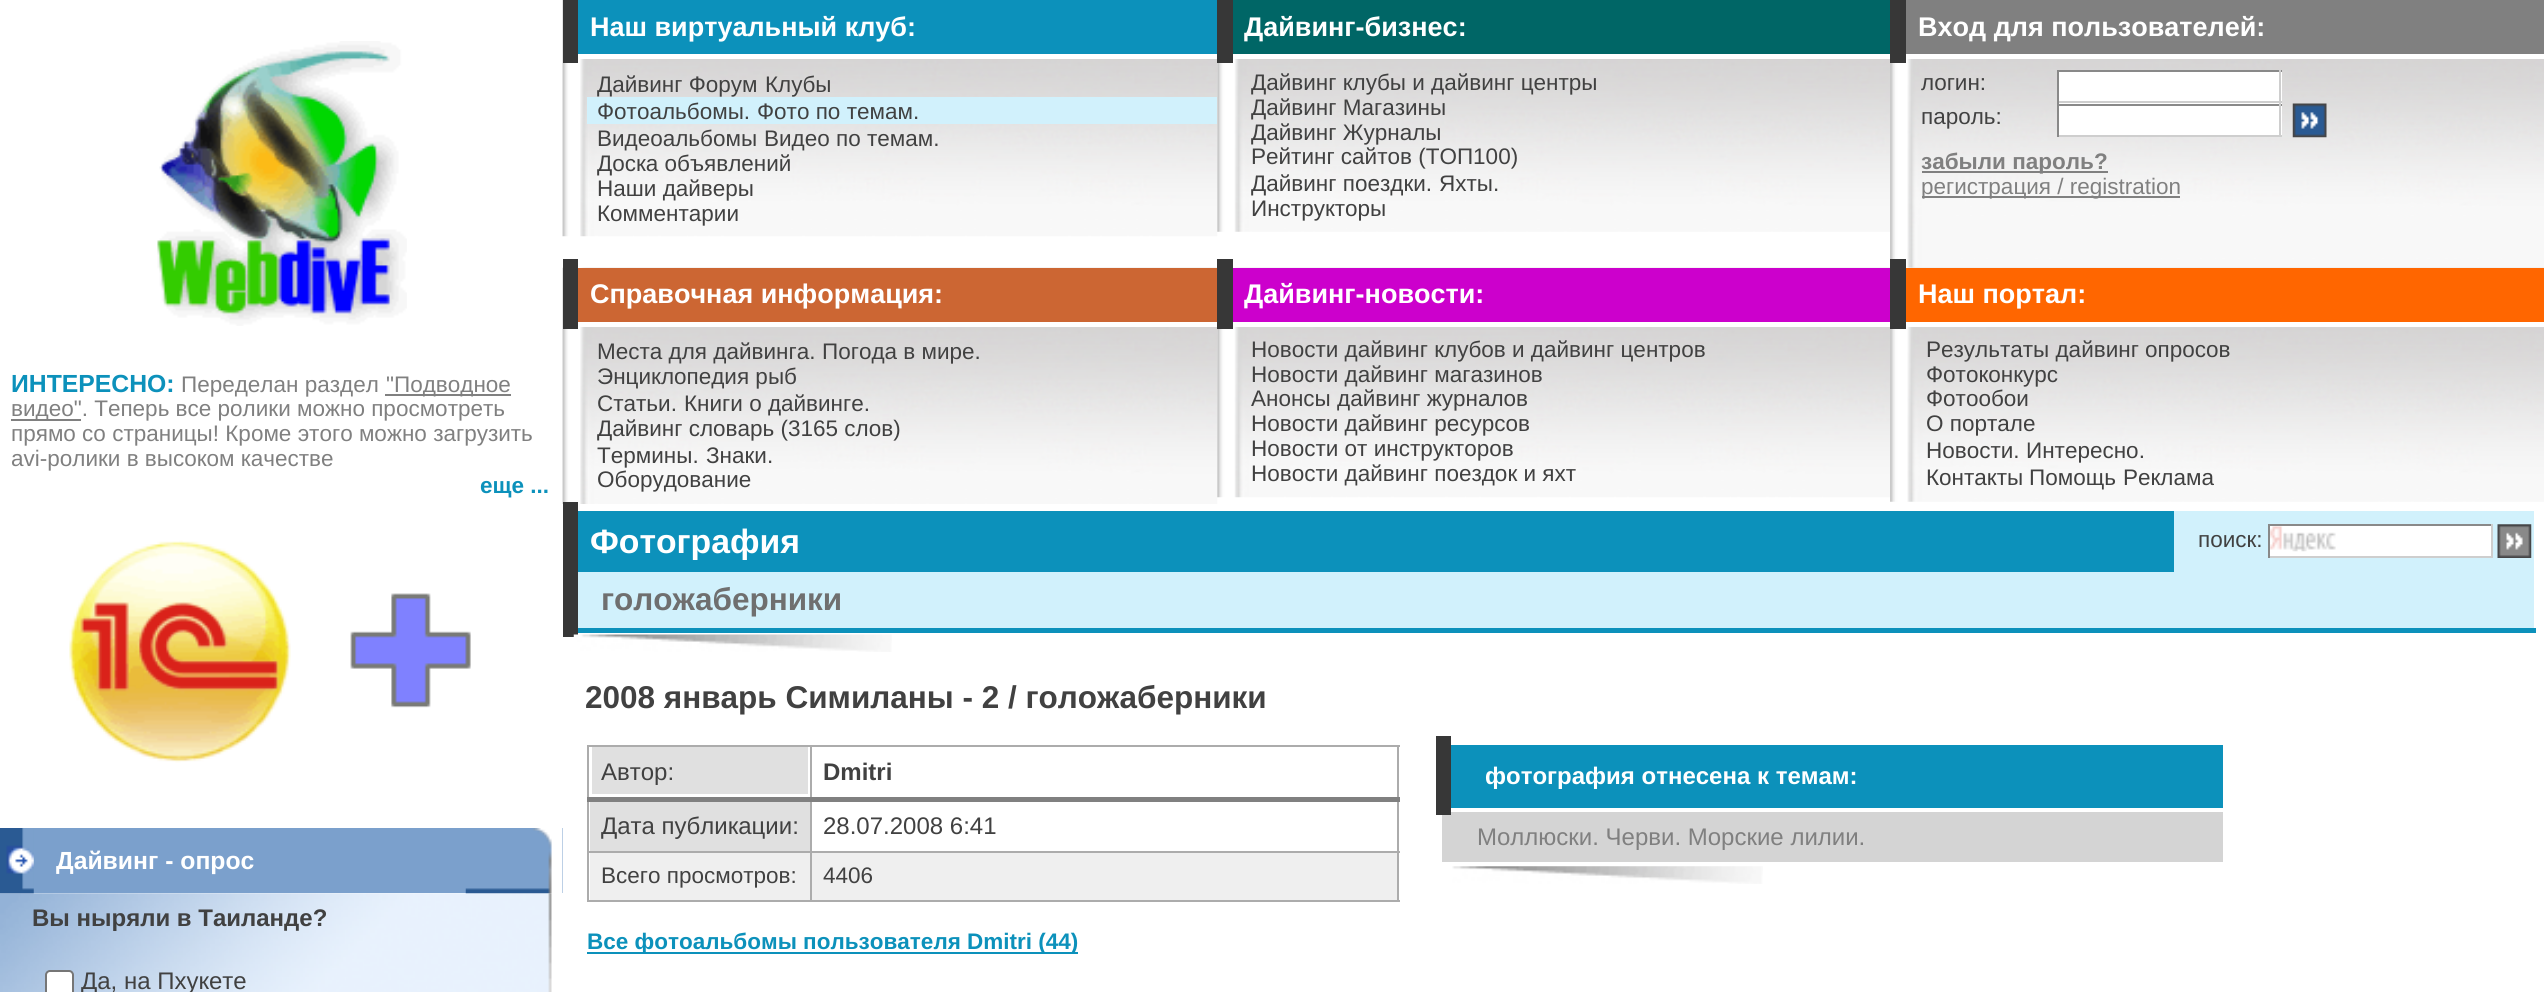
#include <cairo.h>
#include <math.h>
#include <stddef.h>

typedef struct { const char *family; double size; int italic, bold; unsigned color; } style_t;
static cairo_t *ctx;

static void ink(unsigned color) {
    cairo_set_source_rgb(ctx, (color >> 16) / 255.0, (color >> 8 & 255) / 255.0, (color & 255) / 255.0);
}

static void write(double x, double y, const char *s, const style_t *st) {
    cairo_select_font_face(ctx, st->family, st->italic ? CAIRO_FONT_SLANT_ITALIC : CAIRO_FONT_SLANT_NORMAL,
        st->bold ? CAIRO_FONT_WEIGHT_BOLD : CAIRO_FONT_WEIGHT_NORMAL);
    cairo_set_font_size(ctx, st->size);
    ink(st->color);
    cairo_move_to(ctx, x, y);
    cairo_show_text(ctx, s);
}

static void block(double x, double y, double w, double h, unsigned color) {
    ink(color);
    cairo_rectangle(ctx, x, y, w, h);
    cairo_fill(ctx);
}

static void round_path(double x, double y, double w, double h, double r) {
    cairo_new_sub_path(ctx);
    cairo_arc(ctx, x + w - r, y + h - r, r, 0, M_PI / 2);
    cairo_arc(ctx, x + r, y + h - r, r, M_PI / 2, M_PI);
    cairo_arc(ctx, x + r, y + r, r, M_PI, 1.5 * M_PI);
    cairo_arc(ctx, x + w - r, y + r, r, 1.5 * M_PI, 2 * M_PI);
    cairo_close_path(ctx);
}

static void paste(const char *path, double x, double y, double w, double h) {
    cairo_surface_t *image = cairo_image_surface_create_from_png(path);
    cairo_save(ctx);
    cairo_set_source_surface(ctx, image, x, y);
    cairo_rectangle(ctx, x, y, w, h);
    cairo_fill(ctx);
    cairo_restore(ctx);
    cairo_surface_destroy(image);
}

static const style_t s1 = {"Liberation Sans", 24.75, 0, 1, 0x0c91bb};
static const style_t s2 = {"Liberation Sans", 22.5, 0, 0, 0x808080};
static const style_t s3 = {"Liberation Sans", 22.5, 0, 1, 0x0c91bb};
static const style_t s4 = {"Liberation Sans", 27, 0, 1, 0xffffff};
static const style_t s5 = {"Liberation Sans", 22.5, 0, 0, 0x414141};
static const style_t s6 = {"Liberation Sans", 22.5, 0, 1, 0x808080};
static const style_t s7 = {"Liberation Sans", 24.75, 0, 1, 0xffffff};
static const style_t s8 = {"Liberation Sans", 24, 0, 1, 0x414141};
static const style_t s9 = {"Liberation Sans", 24, 0, 0, 0x414141};
static const style_t s10 = {"Liberation Sans", 33.75, 0, 1, 0xffffff};
static const style_t s11 = {"Liberation Sans", 31.5, 0, 1, 0x6f6f6f};
static const style_t s12 = {"Liberation Sans", 31.5, 0, 1, 0x414141};
static const style_t s13 = {"Liberation Sans", 24, 0, 1, 0xffffff};
static const style_t s14 = {"Liberation Sans", 24, 0, 0, 0x808080};

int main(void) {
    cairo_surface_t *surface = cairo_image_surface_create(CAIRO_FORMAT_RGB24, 2544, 992);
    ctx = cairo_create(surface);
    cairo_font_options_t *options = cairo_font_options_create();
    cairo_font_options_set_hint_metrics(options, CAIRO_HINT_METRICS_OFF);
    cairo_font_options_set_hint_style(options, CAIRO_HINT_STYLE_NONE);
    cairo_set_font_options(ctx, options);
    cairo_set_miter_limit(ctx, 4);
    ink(0xffffff);
    cairo_paint(ctx);
    paste("pic1.png", 157, 41, 250, 285);
    write(11, 392, "ИНТЕРЕСНО:", &s1);
    write(181, 392, "Переделан раздел", &s2);
    block(385, 394, 126, 2, 0x808080);
    write(386, 392, "\"Подводное", &s2);
    block(11, 419, 70, 2, 0x808080);
    write(11, 416, "видео\". Теперь все ролики можно просмотреть", &s2);
    write(11, 441, "прямо со страницы! Кроме этого можно загрузить", &s2);
    write(11, 466, "avi-ролики в высоком качестве", &s2);
    write(480, 493, "еще ...", &s3);
    paste("pic2.png", 562, 0, 656, 237);
    block(578, 0, 639, 54, 0x0c91bb);
    block(572, 54, 645, 5, 0xffffff);
    block(563, 0, 15, 63, 0x373737);
    write(590, 36, "Наш виртуальный клуб:", &s4);
    write(597, 92, "Дайвинг Форум", &s5);
    write(765, 92, "Клубы", &s5);
    block(587, 97, 630, 27, 0xd1f1fc);
    write(597, 119, "Фотоальбомы.", &s5);
    write(757, 119, "Фото по темам.", &s5);
    write(597, 146, "Видеоальбомы", &s5);
    write(764, 146, "Видео по темам.", &s5);
    write(597, 171, "Доска объявлений", &s5);
    write(597, 196, "Наши дайверы", &s5);
    write(597, 221, "Комментарии", &s5);
    paste("pic3.png", 1217, 59, 673, 173);
    block(1233, 0, 657, 54, 0x006666);
    block(1217, 0, 16, 63, 0x373737);
    write(1244, 36, "Дайвинг-бизнес:", &s4);
    write(1251, 90, "Дайвинг клубы и дайвинг центры", &s5);
    write(1251, 115, "Дайвинг Магазины", &s5);
    write(1251, 140, "Дайвинг Журналы", &s5);
    write(1251, 164, "Рейтинг сайтов (ТОП100)", &s5);
    write(1251, 191, "Дайвинг поездки.", &s5);
    write(1439, 191, "Яхты.", &s5);
    write(1251, 216, "Инструкторы", &s5);
    paste("pic4.png", 1890, 59, 654, 209);
    block(1906, 0, 638, 54, 0x808080);
    block(1890, 0, 16, 63, 0x373737);
    write(1918, 36, "Вход для пользователей:", &s4);
    write(1921, 90, "логин:", &s5);
    block(2059, 72, 223, 32, 0xffffff);
    block(2057, 70, 225, 2, 0x898989);
    block(2279, 70, 2, 34, 0xcecece);
    block(2057, 101, 225, 2, 0xcecece);
    block(2057, 70, 2, 34, 0x898989);
    write(1921, 124, "пароль:", &s5);
    block(2059, 106, 223, 29, 0xffffff);
    block(2057, 104, 225, 2, 0x898989);
    block(2279, 104, 2, 33, 0xcecece);
    block(2057, 135, 225, 2, 0xcecece);
    block(2057, 104, 2, 33, 0x898989);
    paste("pic5.png", 2292, 103, 35, 35);
    block(1922, 171, 186, 2, 0x808080);
    write(1921, 169, "забыли пароль?", &s6);
    block(1922, 196, 258, 2, 0x808080);
    write(1921, 194, "регистрация / registration", &s2);
    paste("pic6.png", 562, 267, 656, 237);
    block(578, 268, 639, 54, 0xcc6633);
    block(572, 322, 645, 5, 0xffffff);
    block(563, 259, 15, 70, 0x373737);
    write(590, 303, "Справочная информация:", &s4);
    write(597, 359, "Места для дайвинга.", &s5);
    write(822, 359, "Погода в мире.", &s5);
    write(597, 384, "Энциклопедия рыб", &s5);
    write(597, 411, "Статьи.", &s5);
    write(684, 411, "Книги о дайвинге.", &s5);
    write(597, 436, "Дайвинг словарь (3165 слов)", &s5);
    write(597, 463, "Термины.", &s5);
    write(706, 463, "Знаки.", &s5);
    write(597, 487, "Оборудование", &s5);
    paste("pic7.png", 1217, 267, 673, 231);
    block(1233, 268, 657, 54, 0xcc00cc);
    block(1217, 259, 16, 70, 0x373737);
    write(1244, 303, "Дайвинг-новости:", &s4);
    block(1233, 322, 657, 5, 0xffffff);
    write(1251, 357, "Новости дайвинг клубов и дайвинг центров", &s5);
    write(1251, 382, "Новости дайвинг магазинов", &s5);
    write(1251, 406, "Анонсы дайвинг журналов", &s5);
    write(1251, 431, "Новости дайвинг ресурсов", &s5);
    write(1251, 456, "Новости от инструкторов", &s5);
    write(1251, 481, "Новости дайвинг поездок и яхт", &s5);
    paste("pic8.png", 1890, 267, 654, 235);
    block(1906, 268, 638, 54, 0xff6600);
    block(1899, 322, 645, 5, 0xffffff);
    block(1890, 259, 16, 70, 0x373737);
    write(1918, 303, "Наш портал:", &s4);
    write(1926, 357, "Результаты дайвинг опросов", &s5);
    write(1926, 382, "Фотоконкурс", &s5);
    write(1926, 406, "Фотообои", &s5);
    write(1926, 431, "О портале", &s5);
    write(1926, 458, "Новости.", &s5);
    write(2026, 458, "Интересно.", &s5);
    write(1926, 485, "Контакты", &s5);
    write(2029, 485, "Помощь", &s5);
    write(2123, 485, "Реклама", &s5);
    paste("pic9.png", 69, 540, 402, 223);
    block(33, 828, 530, 65, 0x7ba0cc);
    paste("pic12.png", 0, 893, 552, 99);
    paste("pic10.png", 0, 828, 34, 66);
    write(56, 869, "Дайвинг - опрос", &s7);
    paste("pic11.png", 465, 828, 98, 66);
    write(32, 926, "Вы ныряли в Таиланде?", &s8);
    ink(0xffffff);
    round_path(46, 971, 27, 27, 4);
    cairo_fill_preserve(ctx);
    ink(0x767676);
    cairo_stroke(ctx);
    write(81, 989, "Да, на Пхукете", &s9);
    block(578, 511, 1596, 61, 0x0c91bb);
    block(563, 502, 15, 135, 0x373737);
    write(590, 553, "Фотография", &s10);
    block(2174, 511, 360, 61, 0xd1f1fc);
    write(2198, 547, "поиск:", &s5);
    block(2270, 526, 221, 30, 0xffffff);
    paste("pic13.png", 2270, 526, 66, 26);
    block(2268, 524, 225, 2, 0x898989);
    block(2491, 524, 2, 34, 0xcecece);
    block(2268, 556, 225, 2, 0xcecece);
    block(2268, 524, 2, 34, 0x898989);
    paste("pic14.png", 2497, 524, 35, 34);
    block(578, 572, 1956, 56, 0xd1f1fc);
    block(578, 628, 1958, 5, 0x0c91bb);
    write(601, 610, "голожаберники", &s11);
    paste("pic15.png", 573, 634, 319, 18);
    write(585, 708, "2008 январь Симиланы - 2 / голожаберники", &s12);
    block(592, 747, 216, 47, 0xe0e0e0);
    block(810, 745, 590, 2, 0xacacac);
    block(810, 851, 590, 2, 0xacacac);
    block(590, 853, 807, 47, 0xefefef);
    block(1397, 797, 2, 105, 0xacacac);
    block(810, 900, 590, 2, 0xacacac);
    block(810, 851, 2, 51, 0xacacac);
    block(587, 851, 225, 2, 0xacacac);
    block(810, 797, 2, 56, 0xacacac);
    block(810, 745, 2, 54, 0xacacac);
    block(587, 745, 225, 2, 0xacacac);
    block(587, 900, 225, 2, 0xacacac);
    block(587, 797, 2, 105, 0xacacac);
    block(587, 745, 2, 54, 0xacacac);
    write(601, 780, "Автор:", &s9);
    block(1397, 745, 2, 54, 0xacacac);
    block(587, 797, 813, 5, 0x808080);
    write(823, 780, "Dmitri", &s8);
    block(590, 802, 220, 49, 0xe0e0e0);
    write(601, 834, "Дата публикации:", &s9);
    write(823, 834, "28.07.2008 6:41", &s9);
    write(601, 883, "Всего просмотров:", &s5);
    write(823, 883, "4406", &s5);
    block(587, 952, 491, 2, 0x0c91bb);
    write(587, 949, "Все фотоальбомы пользователя Dmitri (44)", &s3);
    block(1451, 745, 772, 63, 0x0c91bb);
    block(1442, 812, 781, 50, 0xd4d4d4);
    block(1436, 736, 15, 79, 0x373737);
    write(1485, 784, "фотография отнесена к темам:", &s13);
    write(1477, 845, "Моллюски. Черви. Морские лилии.", &s14);
    paste("pic16.png", 1452, 866, 311, 18);
    cairo_surface_write_to_png(surface, "screenshot.png");
    cairo_font_options_destroy(options);
    cairo_destroy(ctx);
    cairo_surface_destroy(surface);
    return 0;
}
